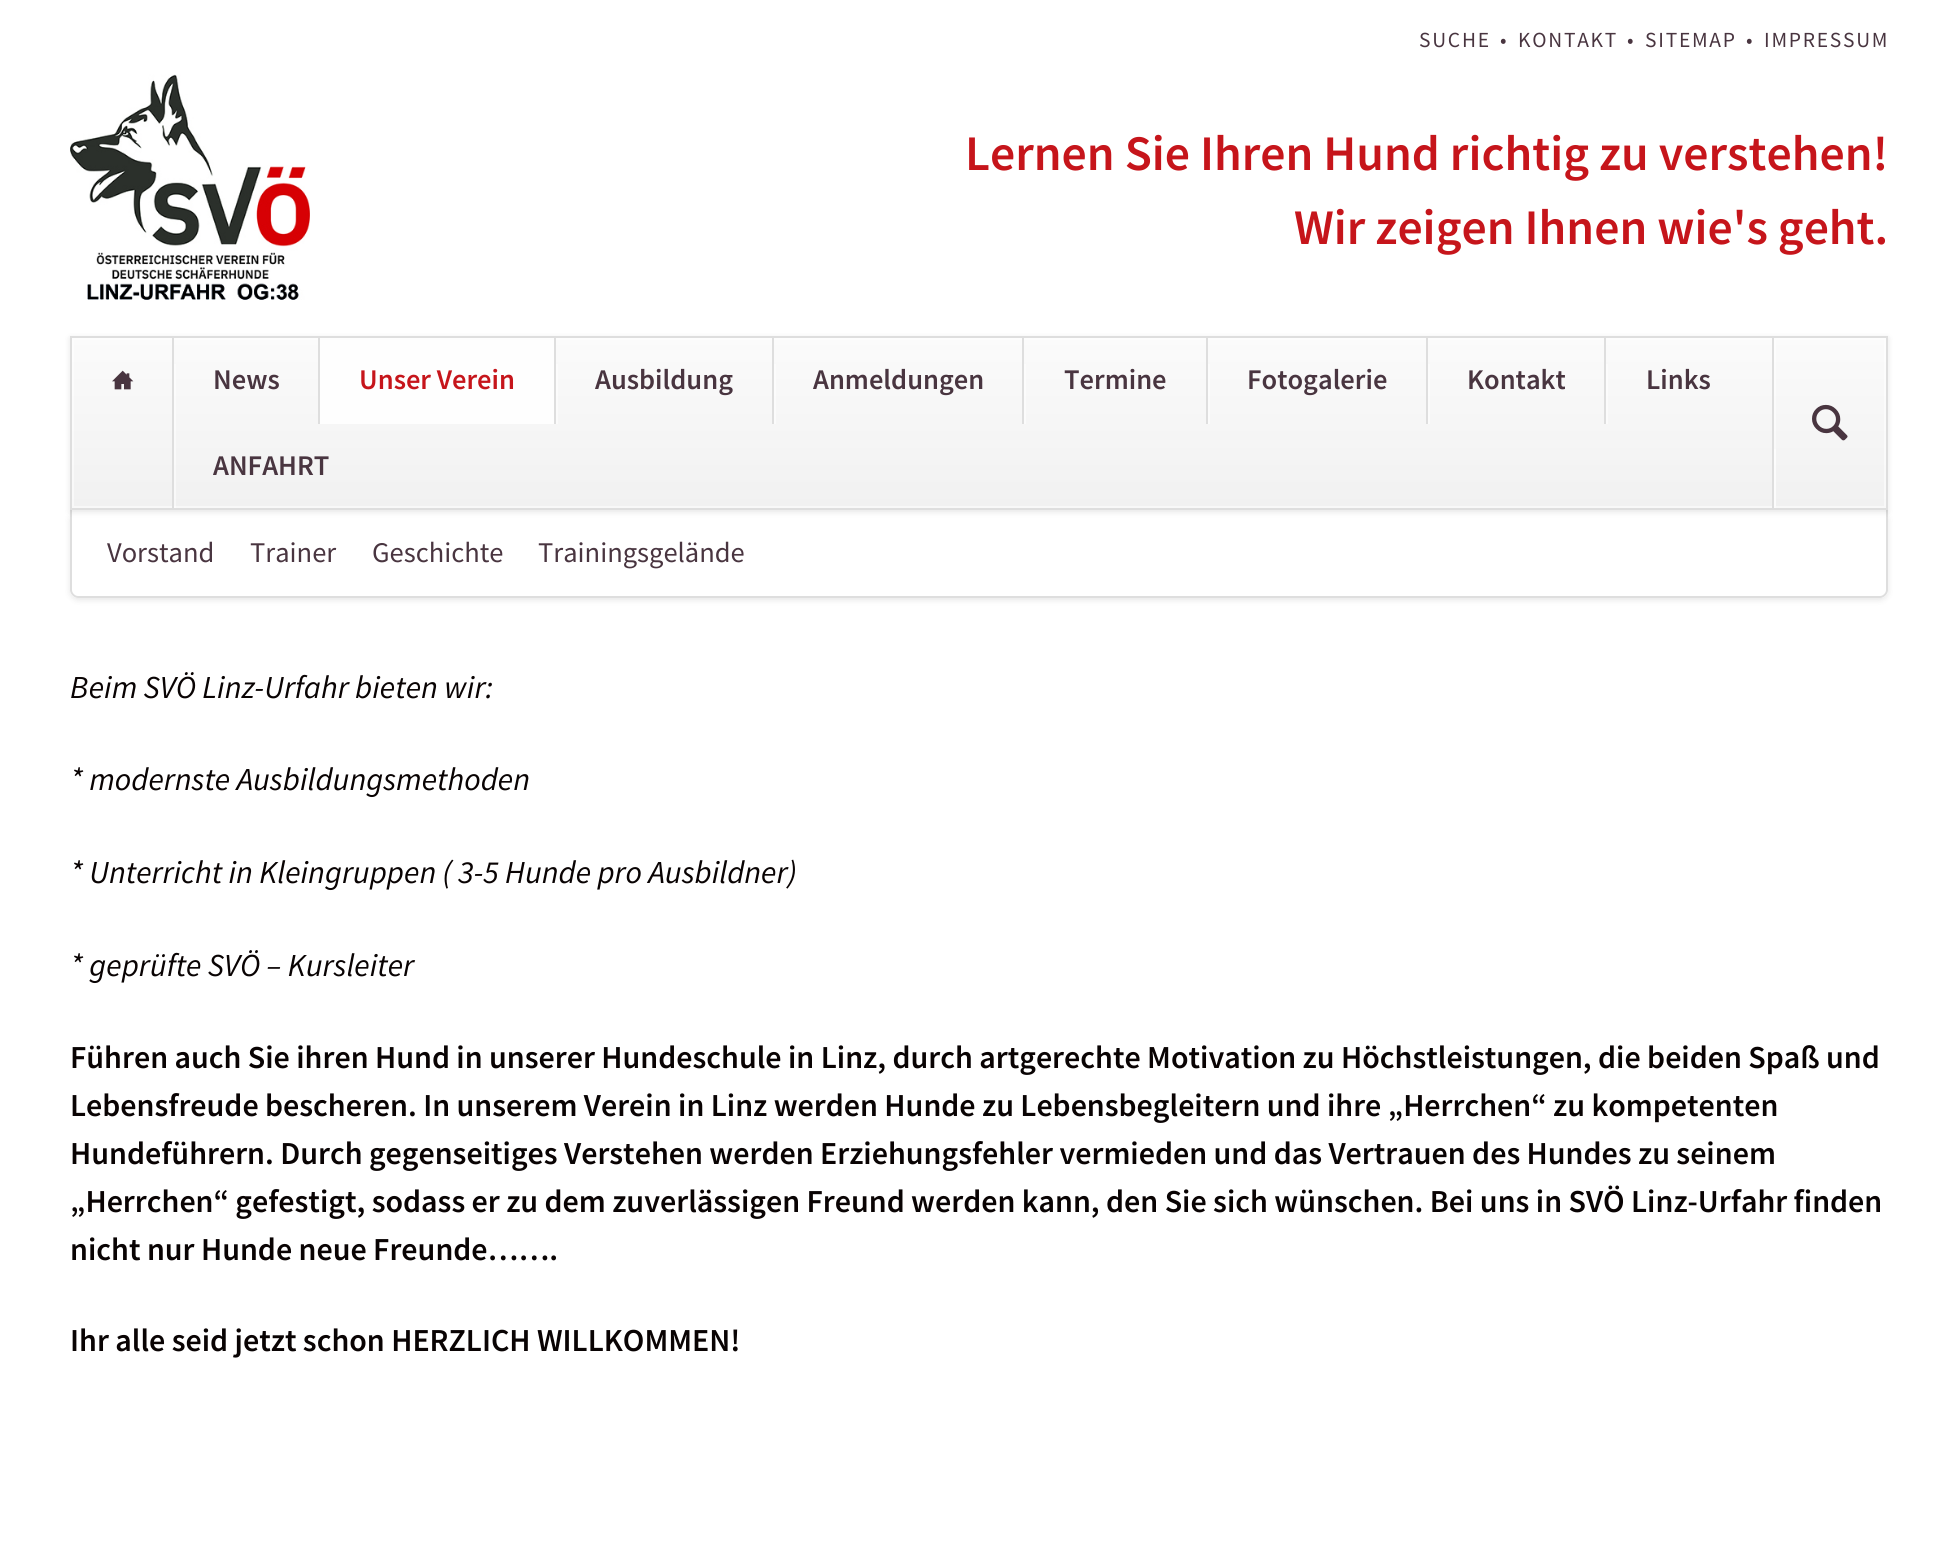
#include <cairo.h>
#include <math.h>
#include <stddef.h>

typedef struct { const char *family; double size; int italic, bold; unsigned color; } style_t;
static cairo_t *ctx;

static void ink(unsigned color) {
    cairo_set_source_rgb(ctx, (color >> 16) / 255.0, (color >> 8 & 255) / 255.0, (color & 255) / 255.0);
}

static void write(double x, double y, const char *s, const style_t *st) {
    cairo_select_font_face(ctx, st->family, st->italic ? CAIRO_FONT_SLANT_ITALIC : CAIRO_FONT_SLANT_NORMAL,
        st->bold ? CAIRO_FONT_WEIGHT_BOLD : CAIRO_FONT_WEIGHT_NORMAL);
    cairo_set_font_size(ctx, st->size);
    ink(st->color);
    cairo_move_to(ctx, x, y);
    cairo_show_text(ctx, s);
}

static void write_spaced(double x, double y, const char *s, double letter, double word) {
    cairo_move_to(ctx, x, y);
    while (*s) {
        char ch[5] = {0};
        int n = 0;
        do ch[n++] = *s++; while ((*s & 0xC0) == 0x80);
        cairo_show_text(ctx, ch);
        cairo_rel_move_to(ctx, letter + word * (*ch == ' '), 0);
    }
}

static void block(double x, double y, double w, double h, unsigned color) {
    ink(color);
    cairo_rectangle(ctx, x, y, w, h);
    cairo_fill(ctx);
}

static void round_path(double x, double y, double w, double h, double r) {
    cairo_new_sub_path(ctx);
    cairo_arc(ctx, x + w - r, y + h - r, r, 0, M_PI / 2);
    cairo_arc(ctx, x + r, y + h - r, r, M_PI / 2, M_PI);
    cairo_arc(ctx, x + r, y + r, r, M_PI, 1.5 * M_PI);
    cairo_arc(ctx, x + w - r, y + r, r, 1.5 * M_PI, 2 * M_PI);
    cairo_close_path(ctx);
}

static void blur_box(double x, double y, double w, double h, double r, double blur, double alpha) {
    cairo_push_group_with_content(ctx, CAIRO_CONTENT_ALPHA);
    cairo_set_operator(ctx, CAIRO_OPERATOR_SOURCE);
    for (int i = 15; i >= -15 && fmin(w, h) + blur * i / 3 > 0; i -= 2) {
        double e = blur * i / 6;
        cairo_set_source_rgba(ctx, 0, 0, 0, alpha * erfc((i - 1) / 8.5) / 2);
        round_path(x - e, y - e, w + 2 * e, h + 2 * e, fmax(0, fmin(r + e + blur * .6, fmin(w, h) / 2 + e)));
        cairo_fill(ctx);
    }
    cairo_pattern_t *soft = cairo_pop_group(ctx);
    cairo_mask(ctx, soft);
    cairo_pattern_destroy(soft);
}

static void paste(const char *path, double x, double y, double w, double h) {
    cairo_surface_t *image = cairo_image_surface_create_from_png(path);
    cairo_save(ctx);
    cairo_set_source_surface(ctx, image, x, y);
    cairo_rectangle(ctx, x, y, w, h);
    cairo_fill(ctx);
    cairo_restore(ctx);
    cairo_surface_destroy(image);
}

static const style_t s1 = {"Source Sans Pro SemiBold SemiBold", 49.75, 0, 0, 0xc6151b};
static const style_t s2 = {"Source Sans Pro SemiBold SemiBold", 28.5, 0, 0, 0x493540};
static const style_t s3 = {"Source Sans Pro SemiBold SemiBold", 28.5, 0, 0, 0xc6151b};
static const style_t s4 = {"Source Sans Pro", 28.5, 0, 0, 0x493540};
static const style_t s5 = {"Source Sans Pro", 32, 1, 0, 0x090303};
static const style_t s6 = {"Source Sans Pro SemiBold SemiBold", 32, 0, 0, 0x090303};

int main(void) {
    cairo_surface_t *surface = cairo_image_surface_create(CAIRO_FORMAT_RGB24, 1957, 1551);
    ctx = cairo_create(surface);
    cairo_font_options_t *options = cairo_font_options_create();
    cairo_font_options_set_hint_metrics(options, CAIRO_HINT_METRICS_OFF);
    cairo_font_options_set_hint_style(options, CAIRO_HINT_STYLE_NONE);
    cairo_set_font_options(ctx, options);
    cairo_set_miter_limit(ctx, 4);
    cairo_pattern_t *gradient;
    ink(0xffffff);
    cairo_paint(ctx);
    cairo_select_font_face(ctx, "Source Sans Pro", CAIRO_FONT_SLANT_NORMAL, CAIRO_FONT_WEIGHT_NORMAL);
    cairo_set_font_size(ctx, 21.5);
    ink(0x493540);
    write_spaced(1419, 47, "SUCHE", 1.75, 0);
    write_spaced(1500, 47, "•", 1.75, 0);
    write_spaced(1518, 47, "KONTAKT", 1.75, 0);
    write_spaced(1627, 47, "•", 1.75, 0);
    write_spaced(1645, 47, "SITEMAP", 1.75, 0);
    write_spaced(1746, 47, "•", 1.75, 0);
    write_spaced(1764, 47, "IMPRESSUM", 1.75, 0);
    paste("pic1.png", 70, 74, 240, 226);
    write(965, 170, "Lernen Sie Ihren Hund richtig zu verstehen!", &s1);
    write(1294, 244, "Wir zeigen Ihnen wie's geht.", &s1);
    cairo_save(ctx);
    cairo_set_fill_rule(ctx, CAIRO_FILL_RULE_EVEN_ODD);
    cairo_new_path(ctx);
    cairo_move_to(ctx, 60, 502);
    cairo_line_to(ctx, 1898, 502);
    cairo_line_to(ctx, 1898, 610);
    cairo_line_to(ctx, 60, 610);
    cairo_close_path(ctx);
    cairo_move_to(ctx, 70, 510);
    cairo_line_to(ctx, 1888, 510);
    cairo_line_to(ctx, 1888, 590);
    cairo_curve_to(ctx, 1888, 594.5, 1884.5, 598, 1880, 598);
    cairo_line_to(ctx, 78, 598);
    cairo_curve_to(ctx, 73.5, 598, 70, 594.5, 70, 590);
    cairo_close_path(ctx);
    cairo_clip(ctx);
    ink(0x000000);
    blur_box(70, 512, 1818, 88, 8, 3, 0.1);
    cairo_restore(ctx);
    ink(0xdedede);
    cairo_set_fill_rule(ctx, CAIRO_FILL_RULE_EVEN_ODD);
    cairo_new_path(ctx);
    cairo_move_to(ctx, 70, 510);
    cairo_line_to(ctx, 1888, 510);
    cairo_line_to(ctx, 1888, 590);
    cairo_curve_to(ctx, 1888, 594, 1884, 598, 1880, 598);
    cairo_line_to(ctx, 78, 598);
    cairo_curve_to(ctx, 74, 598, 70, 594, 70, 590);
    cairo_close_path(ctx);
    cairo_move_to(ctx, 72, 510);
    cairo_line_to(ctx, 1886, 510);
    cairo_line_to(ctx, 1886, 590);
    cairo_curve_to(ctx, 1886, 593, 1883, 596, 1880, 596);
    cairo_line_to(ctx, 78, 596);
    cairo_curve_to(ctx, 75, 596, 72, 593, 72, 590);
    cairo_close_path(ctx);
    cairo_fill(ctx);
    ink(0x000000);
    blur_box(70, 338, 1818, 174, 0, 3, 0.1);
    gradient = cairo_pattern_create_linear(979, 338, 979, 508);
    cairo_pattern_add_color_stop_rgba(gradient, 0, 0.984, 0.984, 0.984, 1);
    cairo_pattern_add_color_stop_rgba(gradient, 1, 0.945, 0.945, 0.945, 1);
    cairo_set_source(ctx, gradient);
    cairo_pattern_destroy(gradient);
    cairo_rectangle(ctx, 72, 338, 1700, 170);
    cairo_fill(ctx);
    cairo_rectangle(ctx, 73, 339, 1812, 168);
    cairo_set_source_rgba(ctx, 1, 1, 1, 0.5);
    cairo_stroke(ctx);
    cairo_rectangle(ctx, 71, 337, 1816, 172);
    ink(0xdedede);
    cairo_stroke(ctx);
    paste("pic2.png", 112, 370, 22, 20);
    cairo_set_source_rgba(ctx, 1, 1, 1, 0.5);
    cairo_rectangle(ctx, 174, 364, 2, 60);
    cairo_fill(ctx);
    block(172, 338, 2, 170, 0xdedede);
    write(213, 389, "News", &s2);
    block(320, 340, 234, 84, 0xfefefe);
    block(318, 338, 2, 86, 0xdedede);
    write(359, 389, "Unser Verein", &s3);
    cairo_set_source_rgba(ctx, 1, 1, 1, 0.5);
    cairo_rectangle(ctx, 556, 364, 2, 60);
    cairo_fill(ctx);
    block(554, 338, 2, 86, 0xdedede);
    write(595, 389, "Ausbildung", &s2);
    cairo_set_source_rgba(ctx, 1, 1, 1, 0.5);
    cairo_rectangle(ctx, 774, 364, 2, 60);
    cairo_fill(ctx);
    block(772, 338, 2, 86, 0xdedede);
    write(813, 389, "Anmeldungen", &s2);
    cairo_set_source_rgba(ctx, 1, 1, 1, 0.5);
    cairo_rectangle(ctx, 1024, 364, 2, 60);
    cairo_fill(ctx);
    block(1022, 338, 2, 86, 0xdedede);
    write(1064, 389, "Termine", &s2);
    cairo_set_source_rgba(ctx, 1, 1, 1, 0.5);
    cairo_rectangle(ctx, 1208, 364, 2, 60);
    cairo_fill(ctx);
    block(1206, 338, 2, 86, 0xdedede);
    write(1247, 389, "Fotogalerie", &s2);
    cairo_set_source_rgba(ctx, 1, 1, 1, 0.5);
    cairo_rectangle(ctx, 1428, 364, 2, 60);
    cairo_fill(ctx);
    block(1426, 338, 2, 86, 0xdedede);
    write(1467, 389, "Kontakt", &s2);
    cairo_set_source_rgba(ctx, 1, 1, 1, 0.5);
    cairo_rectangle(ctx, 1606, 364, 2, 60);
    cairo_fill(ctx);
    block(1604, 338, 2, 86, 0xdedede);
    write(1646, 389, "Links", &s2);
    cairo_set_source_rgba(ctx, 1, 1, 1, 0.5);
    cairo_rectangle(ctx, 174, 424, 2, 84);
    cairo_fill(ctx);
    write(213, 475, "ANFAHRT", &s2);
    gradient = cairo_pattern_create_linear(1830, 338, 1830, 508);
    cairo_pattern_add_color_stop_rgba(gradient, 0, 0.984, 0.984, 0.984, 1);
    cairo_pattern_add_color_stop_rgba(gradient, 1, 0.945, 0.945, 0.945, 1);
    cairo_set_source(ctx, gradient);
    cairo_pattern_destroy(gradient);
    cairo_rectangle(ctx, 1774, 338, 112, 170);
    cairo_fill(ctx);
    cairo_rectangle(ctx, 1775, 339, 110, 168);
    cairo_set_source_rgba(ctx, 1, 1, 1, 0.5);
    cairo_stroke(ctx);
    cairo_rectangle(ctx, 1774, 449, 2, 59);
    cairo_fill(ctx);
    block(1772, 338, 2, 170, 0xdedede);
    paste("pic3.png", 1812, 404, 36, 37);
    write(107, 562, "Vorstand", &s4);
    write(250, 562, "Trainer", &s4);
    write(372, 562, "Geschichte", &s4);
    write(538, 562, "Trainingsgelände", &s4);
    write(70, 698, "Beim SVÖ Linz-Urfahr bieten wir:", &s5);
    write(70, 790, "* modernste Ausbildungsmethoden", &s5);
    write(70, 883, "* Unterricht in Kleingruppen ( 3-5 Hunde pro Ausbildner)", &s5);
    write(70, 976, "* geprüfte SVÖ – Kursleiter", &s5);
    write(70, 1068, "Führen auch Sie ihren Hund in unserer Hundeschule in Linz, durch artgerechte Motivation zu Höchstleistungen, die beiden Spaß und", &s6);
    write(70, 1116, "Lebensfreude bescheren. In unserem Verein in Linz werden Hunde zu Lebensbegleitern und ihre „Herrchen“ zu kompetenten", &s6);
    write(70, 1164, "Hundeführern. Durch gegenseitiges Verstehen werden Erziehungsfehler vermieden und das Vertrauen des Hundes zu seinem", &s6);
    write(70, 1212, "„Herrchen“ gefestigt, sodass er zu dem zuverlässigen Freund werden kann, den Sie sich wünschen. Bei uns in SVÖ Linz-Urfahr finden", &s6);
    write(70, 1260, "nicht nur Hunde neue Freunde…….", &s6);
    write(70, 1351, "Ihr alle seid jetzt schon HERZLICH WILLKOMMEN!", &s6);
    cairo_surface_write_to_png(surface, "screenshot.png");
    cairo_font_options_destroy(options);
    cairo_destroy(ctx);
    cairo_surface_destroy(surface);
    return 0;
}
